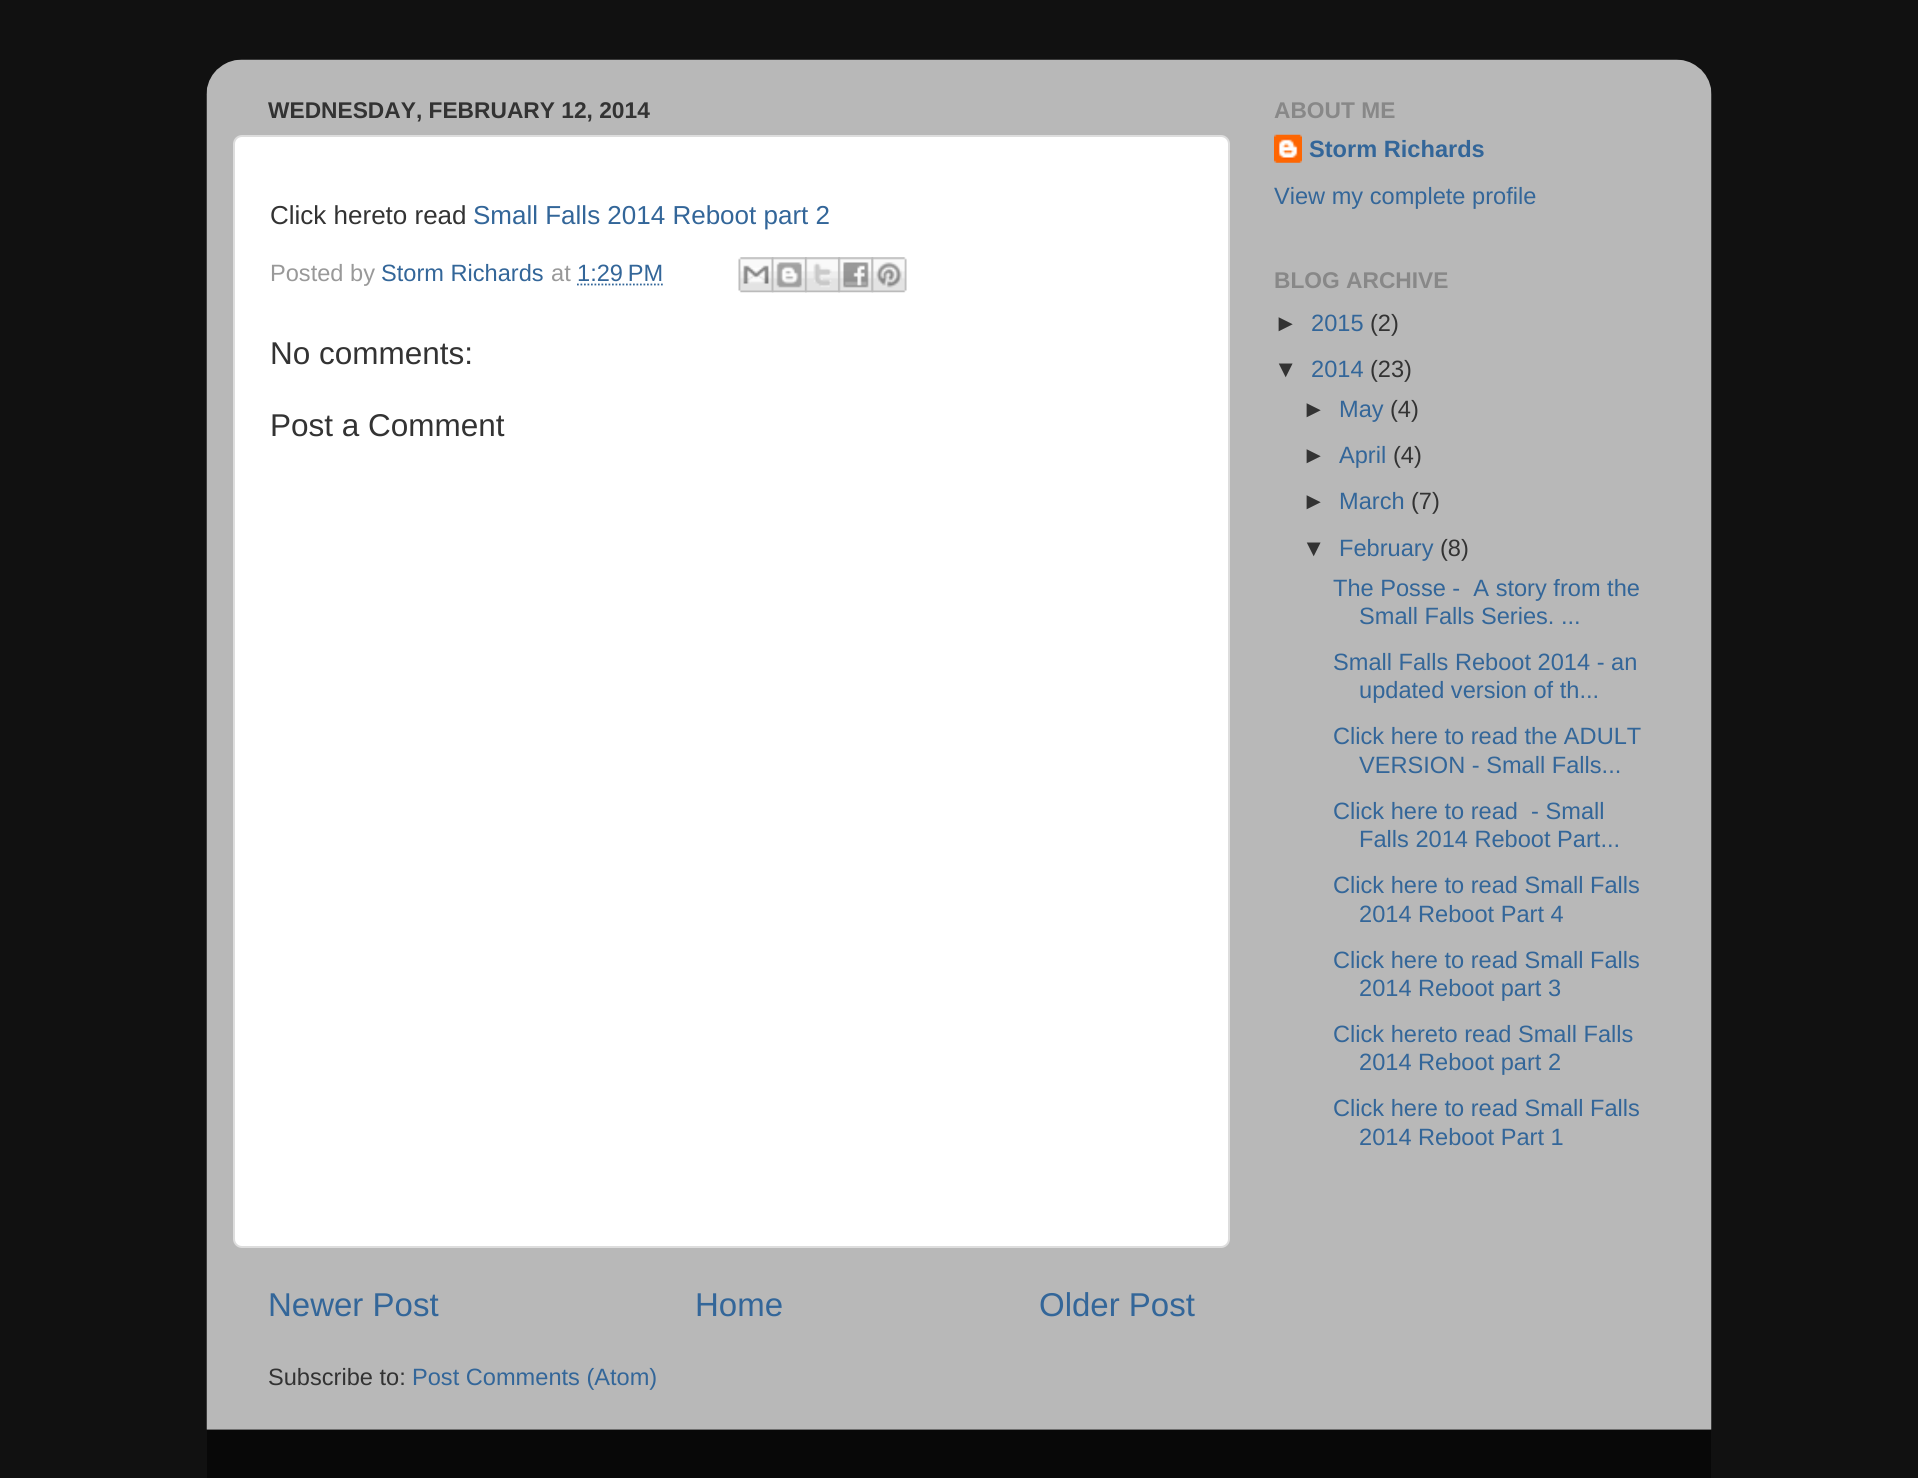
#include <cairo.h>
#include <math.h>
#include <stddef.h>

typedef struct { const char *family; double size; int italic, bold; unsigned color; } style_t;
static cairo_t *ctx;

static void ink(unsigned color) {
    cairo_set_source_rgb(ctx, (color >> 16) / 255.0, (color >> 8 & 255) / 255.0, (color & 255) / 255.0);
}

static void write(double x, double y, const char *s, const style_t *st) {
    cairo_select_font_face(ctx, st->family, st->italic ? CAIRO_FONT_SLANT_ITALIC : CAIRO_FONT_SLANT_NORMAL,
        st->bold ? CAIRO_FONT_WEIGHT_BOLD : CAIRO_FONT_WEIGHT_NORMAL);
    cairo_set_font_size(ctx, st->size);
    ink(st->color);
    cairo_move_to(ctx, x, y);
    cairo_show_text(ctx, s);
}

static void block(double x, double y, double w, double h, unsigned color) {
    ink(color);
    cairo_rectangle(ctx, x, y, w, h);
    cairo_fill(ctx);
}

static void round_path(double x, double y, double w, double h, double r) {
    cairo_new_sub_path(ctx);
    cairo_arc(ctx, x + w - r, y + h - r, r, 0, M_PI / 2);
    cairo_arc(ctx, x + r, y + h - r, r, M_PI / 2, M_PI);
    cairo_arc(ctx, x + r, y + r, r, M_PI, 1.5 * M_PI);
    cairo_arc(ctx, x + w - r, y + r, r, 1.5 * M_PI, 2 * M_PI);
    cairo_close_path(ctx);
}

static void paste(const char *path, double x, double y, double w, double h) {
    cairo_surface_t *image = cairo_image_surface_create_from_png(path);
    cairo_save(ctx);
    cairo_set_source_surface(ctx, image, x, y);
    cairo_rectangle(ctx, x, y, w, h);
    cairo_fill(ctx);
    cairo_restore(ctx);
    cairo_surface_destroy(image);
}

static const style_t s1 = {"Liberation Sans", 22.75, 0, 1, 0x333333};
static const style_t s2 = {"Liberation Sans", 26, 0, 0, 0x333333};
static const style_t s3 = {"Liberation Sans", 26, 0, 0, 0x336699};
static const style_t s4 = {"Liberation Sans", 23.6, 0, 0, 0x999999};
static const style_t s5 = {"Liberation Sans", 23.6, 0, 0, 0x336699};
static const style_t s6 = {"Liberation Sans", 31.5, 0, 0, 0x333333};
static const style_t s7 = {"Liberation Sans", 33, 0, 0, 0x336699};
static const style_t s8 = {"Liberation Sans", 23.6, 0, 0, 0x333333};
static const style_t s9 = {"Liberation Sans", 22.75, 0, 1, 0x888888};
static const style_t s10 = {"Liberation Sans", 23.6, 0, 1, 0x336699};

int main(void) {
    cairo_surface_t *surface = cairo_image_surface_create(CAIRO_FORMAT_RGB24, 1918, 1478);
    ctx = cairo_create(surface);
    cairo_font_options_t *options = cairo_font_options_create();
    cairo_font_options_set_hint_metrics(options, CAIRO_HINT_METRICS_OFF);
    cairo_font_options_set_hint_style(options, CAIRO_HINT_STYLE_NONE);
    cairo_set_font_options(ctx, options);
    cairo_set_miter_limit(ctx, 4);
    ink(0x111111);
    cairo_paint(ctx);
    paste("pic1.png", 206, 59, 1506, 1371);
    write(268, 118, "WEDNESDAY, FEBRUARY 12, 2014", &s1);
    ink(0xffffff);
    round_path(234, 136, 995, 1111, 8);
    cairo_fill_preserve(ctx);
    ink(0xdddddd);
    cairo_stroke(ctx);
    write(270, 224, "Click hereto read", &s2);
    write(473, 224, "Small Falls 2014 Reboot part 2", &s3);
    write(270, 281, "Posted by", &s4);
    write(381, 281, "Storm Richards", &s5);
    write(551, 281, "at", &s4);
    write(577, 281, "1:29 PM", &s5);
    cairo_new_path(ctx);
    cairo_move_to(ctx, 577, 284.5);
    cairo_line_to(ctx, 663, 284.5);
    cairo_set_line_width(ctx, 1.8);
    cairo_set_dash(ctx, (double[]){1.75, 1.75}, 2, 0);
    cairo_stroke(ctx);
    paste("pic2.png", 738, 257, 36, 36);
    paste("pic3.png", 771, 257, 36, 36);
    paste("pic4.png", 805, 257, 35, 36);
    paste("pic5.png", 838, 257, 36, 36);
    paste("pic6.png", 871, 257, 36, 36);
    write(270, 364, "No comments:", &s6);
    write(270, 436, "Post a Comment", &s6);
    write(268, 1316, "Newer Post", &s7);
    write(695, 1316, "Home", &s7);
    write(1039, 1316, "Older Post", &s7);
    write(268, 1385, "Subscribe to:", &s8);
    write(412, 1385, "Post Comments (Atom)", &s5);
    write(1274, 118, "ABOUT ME", &s9);
    paste("pic7.png", 1274, 134, 28, 29);
    write(1309, 157, "Storm Richards", &s10);
    write(1274, 204, "View my complete profile", &s5);
    write(1274, 288, "BLOG ARCHIVE", &s9);
    write(1274, 331, "►", &s8);
    write(1311, 331, "2015", &s5);
    write(1370, 331, "(2)", &s8);
    write(1274, 377, "▼", &s8);
    write(1311, 377, "2014", &s5);
    write(1370, 377, "(23)", &s8);
    write(1302, 417, "►", &s8);
    write(1339, 417, "May", &s5);
    write(1390, 417, "(4)", &s8);
    write(1302, 463, "►", &s8);
    write(1339, 463, "April", &s5);
    write(1393, 463, "(4)", &s8);
    write(1302, 509, "►", &s8);
    write(1339, 509, "March", &s5);
    write(1411, 509, "(7)", &s8);
    write(1302, 556, "▼", &s8);
    write(1339, 556, "February", &s5);
    write(1440, 556, "(8)", &s8);
    write(1333, 596, "The Posse -  A story from the", &s5);
    write(1359, 624, "Small Falls Series. ...", &s5);
    write(1333, 670, "Small Falls Reboot 2014 - an", &s5);
    write(1359, 698, "updated version of th...", &s5);
    write(1333, 744, "Click here to read the ADULT", &s5);
    write(1359, 773, "VERSION - Small Falls...", &s5);
    write(1333, 819, "Click here to read  - Small", &s5);
    write(1359, 847, "Falls 2014 Reboot Part...", &s5);
    write(1333, 893, "Click here to read Small Falls", &s5);
    write(1359, 922, "2014 Reboot Part 4", &s5);
    write(1333, 968, "Click here to read Small Falls", &s5);
    write(1359, 996, "2014 Reboot part 3", &s5);
    write(1333, 1042, "Click hereto read Small Falls", &s5);
    write(1359, 1070, "2014 Reboot part 2", &s5);
    write(1333, 1116, "Click here to read Small Falls", &s5);
    write(1359, 1145, "2014 Reboot Part 1", &s5);
    block(207, 1430, 1504, 48, 0x080808);
    cairo_surface_write_to_png(surface, "screenshot.png");
    cairo_font_options_destroy(options);
    cairo_destroy(ctx);
    cairo_surface_destroy(surface);
    return 0;
}
